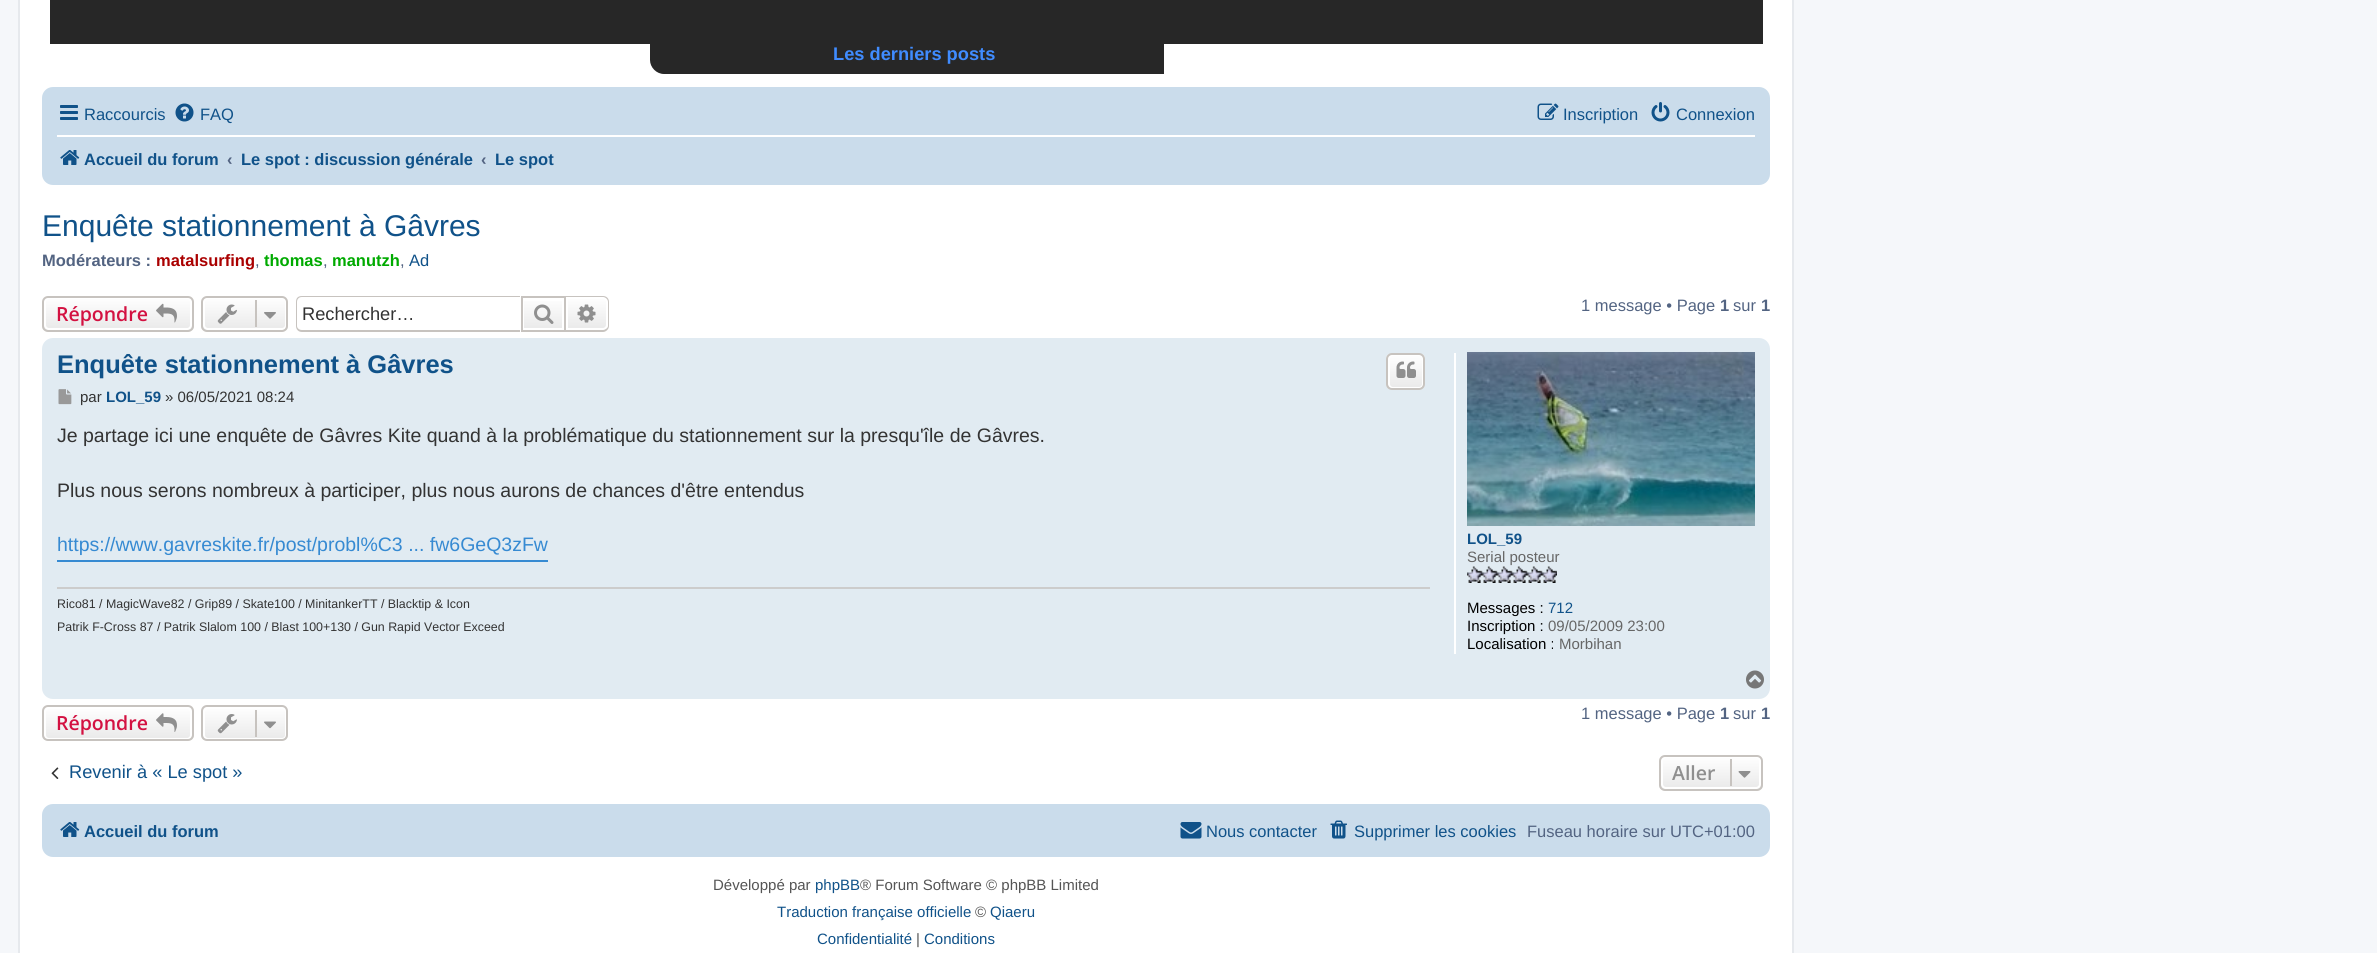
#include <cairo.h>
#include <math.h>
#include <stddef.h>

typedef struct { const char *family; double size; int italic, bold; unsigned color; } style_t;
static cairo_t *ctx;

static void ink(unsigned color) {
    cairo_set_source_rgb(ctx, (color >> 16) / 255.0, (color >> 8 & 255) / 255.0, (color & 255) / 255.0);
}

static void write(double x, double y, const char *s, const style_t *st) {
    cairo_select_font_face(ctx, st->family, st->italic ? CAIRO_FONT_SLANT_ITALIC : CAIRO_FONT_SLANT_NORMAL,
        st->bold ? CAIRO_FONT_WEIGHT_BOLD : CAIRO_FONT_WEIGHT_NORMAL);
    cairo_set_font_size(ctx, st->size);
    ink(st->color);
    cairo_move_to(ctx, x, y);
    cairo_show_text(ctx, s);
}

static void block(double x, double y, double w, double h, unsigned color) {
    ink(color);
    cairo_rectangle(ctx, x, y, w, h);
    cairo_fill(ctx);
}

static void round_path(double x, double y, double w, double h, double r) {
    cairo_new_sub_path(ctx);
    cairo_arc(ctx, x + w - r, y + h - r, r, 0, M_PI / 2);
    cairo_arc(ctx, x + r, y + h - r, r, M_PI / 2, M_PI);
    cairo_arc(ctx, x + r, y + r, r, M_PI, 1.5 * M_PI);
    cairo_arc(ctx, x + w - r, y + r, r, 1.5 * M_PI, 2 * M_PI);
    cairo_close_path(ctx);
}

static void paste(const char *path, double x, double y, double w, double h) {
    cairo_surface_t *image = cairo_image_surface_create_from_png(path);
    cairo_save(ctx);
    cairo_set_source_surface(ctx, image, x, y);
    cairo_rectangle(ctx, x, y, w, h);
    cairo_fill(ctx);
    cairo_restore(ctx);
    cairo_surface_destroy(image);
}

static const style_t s1 = {"Liberation Sans", 18.25, 0, 1, 0x408cff};
static const style_t s2 = {"Liberation Sans", 16.5, 0, 0, 0x105289};
static const style_t s3 = {"Liberation Sans", 16.5, 0, 1, 0x105289};
static const style_t s4 = {"Liberation Sans", 16.5, 0, 1, 0x536482};
static const style_t s5 = {"Liberation Sans", 30, 0, 0, 0x105289};
static const style_t s6 = {"Liberation Sans", 16.5, 0, 1, 0xaa0000};
static const style_t s7 = {"Liberation Sans", 16.5, 0, 0, 0x536482};
static const style_t s8 = {"Liberation Sans", 16.5, 0, 1, 0x00aa00};
static const style_t s9 = {"Open Sans SemiBold", 19.5, 0, 0, 0xd31141};
static const style_t s10 = {"Liberation Sans", 18.25, 0, 0, 0x333333};
static const style_t s11 = {"Liberation Sans", 25.5, 0, 1, 0x105289};
static const style_t s12 = {"Liberation Sans", 15, 0, 0, 0x333333};
static const style_t s13 = {"Liberation Sans", 15, 0, 1, 0x105289};
static const style_t s14 = {"Liberation Sans", 19.5, 0, 0, 0x333333};
static const style_t s15 = {"Liberation Sans", 19.5, 0, 0, 0x368ad2};
static const style_t s16 = {"Liberation Sans", 12.4, 0, 0, 0x333333};
static const style_t s17 = {"Liberation Sans", 15, 0, 0, 0x666666};
static const style_t s18 = {"Liberation Sans", 15, 0, 0, 0x000000};
static const style_t s19 = {"Liberation Sans", 15, 0, 0, 0x105289};
static const style_t s20 = {"Liberation Sans", 18.25, 0, 0, 0x105289};
static const style_t s21 = {"Open Sans SemiBold", 19.5, 0, 0, 0x8f8f8f};
static const style_t s22 = {"Liberation Sans", 15, 0, 0, 0x555555};

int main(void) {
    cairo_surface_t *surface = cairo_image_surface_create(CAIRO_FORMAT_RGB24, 2377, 953);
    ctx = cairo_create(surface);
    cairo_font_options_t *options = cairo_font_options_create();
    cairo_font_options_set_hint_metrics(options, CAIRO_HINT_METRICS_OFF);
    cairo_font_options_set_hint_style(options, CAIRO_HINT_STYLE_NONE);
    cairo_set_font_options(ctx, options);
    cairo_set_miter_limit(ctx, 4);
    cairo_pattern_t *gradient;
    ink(0xf5f7fa);
    cairo_paint(ctx);
    ink(0xffffff);
    cairo_rectangle(ctx, 19, -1, 1774, 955);
    cairo_fill_preserve(ctx);
    ink(0xe6e9ed);
    cairo_stroke(ctx);
    block(50, 0, 1713, 44, 0x272727);
    cairo_new_path(ctx);
    cairo_move_to(ctx, 650, 44);
    cairo_line_to(ctx, 1164, 44);
    cairo_line_to(ctx, 1164, 74);
    cairo_line_to(ctx, 664, 74);
    cairo_curve_to(ctx, 656.5, 74, 650, 67.5, 650, 60);
    cairo_close_path(ctx);
    cairo_fill(ctx);
    write(833, 60, "Les derniers posts", &s1);
    ink(0xcadceb);
    round_path(42, 87, 1728, 98, 11);
    cairo_fill(ctx);
    paste("pic1.png", 60, 105, 18, 15);
    write(84, 120, "Raccourcis", &s2);
    paste("pic2.png", 175, 103, 19, 19);
    write(200, 120, "FAQ", &s2);
    paste("pic3.png", 1537, 103, 22, 17);
    write(1563, 120, "Inscription", &s2);
    paste("pic4.png", 1651, 102, 19, 20);
    write(1676, 120, "Connexion", &s2);
    block(57, 135, 1698, 2, 0xffffff);
    paste("pic5.png", 60, 150, 20, 15);
    write(84, 165, "Accueil du forum", &s3);
    write(227, 165, "‹", &s4);
    cairo_save(ctx);
    cairo_rectangle(ctx, 242, 141, 231, 36);
    cairo_clip(ctx);
    write(241, 165, "Le spot : discussion générale", &s3);
    cairo_restore(ctx);
    write(481, 165, "‹", &s4);
    write(495, 165, "Le spot", &s3);
    write(42, 236, "Enquête stationnement à Gâvres", &s5);
    write(42, 266, "Modérateurs :", &s4);
    write(156, 266, "matalsurfing", &s6);
    write(255, 266, ",", &s7);
    write(264, 266, "thomas", &s8);
    write(323, 266, ",", &s7);
    write(332, 266, "manutzh", &s8);
    write(400, 266, ",", &s7);
    write(409, 266, "Ad", &s2);
    cairo_save(ctx);
    round_path(42, 296, 152, 36, 6);
    cairo_clip(ctx);
    gradient = cairo_pattern_create_linear(118, 297, 118, 330);
    cairo_pattern_add_color_stop_rgba(gradient, 0, 1, 1, 1, 1);
    cairo_pattern_add_color_stop_rgba(gradient, 1, 0.914, 0.914, 0.914, 1);
    cairo_set_source(ctx, gradient);
    cairo_pattern_destroy(gradient);
    cairo_rectangle(ctx, 42, 297, 152, 33);
    cairo_fill(ctx);
    cairo_restore(ctx);
    round_path(45, 298, 146, 31, 4);
    ink(0xffffff);
    cairo_stroke(ctx);
    round_path(43, 297, 150, 34, 5);
    ink(0xc7c3bf);
    cairo_stroke(ctx);
    write(56, 321, "Répondre", &s9);
    paste("pic6.png", 156, 303, 21, 20);
    cairo_save(ctx);
    round_path(201, 296, 87, 36, 6);
    cairo_clip(ctx);
    gradient = cairo_pattern_create_linear(245, 297, 245, 330);
    cairo_pattern_add_color_stop_rgba(gradient, 0, 1, 1, 1, 1);
    cairo_pattern_add_color_stop_rgba(gradient, 1, 0.914, 0.914, 0.914, 1);
    cairo_set_source(ctx, gradient);
    cairo_pattern_destroy(gradient);
    cairo_rectangle(ctx, 201, 297, 87, 33);
    cairo_fill(ctx);
    cairo_restore(ctx);
    round_path(204, 298, 82, 31, 4);
    ink(0xffffff);
    cairo_stroke(ctx);
    round_path(202, 297, 85, 34, 5);
    ink(0xc7c3bf);
    cairo_stroke(ctx);
    paste("pic7.png", 217, 304, 20, 20);
    block(255, 300, 2, 27, 0xc7c3bf);
    paste("pic8.png", 264, 312, 12, 7);
    cairo_set_fill_rule(ctx, CAIRO_FILL_RULE_EVEN_ODD);
    cairo_new_path(ctx);
    cairo_move_to(ctx, 302, 296);
    cairo_line_to(ctx, 520, 296);
    cairo_line_to(ctx, 520, 332);
    cairo_line_to(ctx, 302, 332);
    cairo_curve_to(ctx, 298, 332, 296, 329, 296, 326);
    cairo_line_to(ctx, 296, 302);
    cairo_curve_to(ctx, 296, 298, 298, 296, 302, 296);
    cairo_close_path(ctx);
    cairo_move_to(ctx, 302, 297);
    cairo_line_to(ctx, 520, 297);
    cairo_line_to(ctx, 520, 330);
    cairo_line_to(ctx, 302, 330);
    cairo_curve_to(ctx, 299, 330, 297, 328, 297, 326);
    cairo_line_to(ctx, 297, 302);
    cairo_curve_to(ctx, 297, 299, 299, 297, 302, 297);
    cairo_close_path(ctx);
    cairo_fill(ctx);
    write(302, 320, "Rechercher…", &s10);
    gradient = cairo_pattern_create_linear(543, 297, 543, 330);
    cairo_pattern_add_color_stop_rgba(gradient, 0, 1, 1, 1, 1);
    cairo_pattern_add_color_stop_rgba(gradient, 1, 0.914, 0.914, 0.914, 1);
    cairo_set_source(ctx, gradient);
    cairo_pattern_destroy(gradient);
    cairo_rectangle(ctx, 524, 301, 38, 27);
    cairo_fill(ctx);
    cairo_rectangle(ctx, 522, 297, 43, 34);
    ink(0xc7c3bf);
    cairo_stroke(ctx);
    paste("pic9.png", 534, 304, 20, 20);
    gradient = cairo_pattern_create_linear(587, 297, 587, 330);
    cairo_pattern_add_color_stop_rgba(gradient, 0, 1, 1, 1, 1);
    cairo_pattern_add_color_stop_rgba(gradient, 1, 0.914, 0.914, 0.914, 1);
    cairo_set_source(ctx, gradient);
    cairo_pattern_destroy(gradient);
    cairo_new_path(ctx);
    cairo_move_to(ctx, 567, 298);
    cairo_line_to(ctx, 603, 298);
    cairo_curve_to(ctx, 605, 298, 607, 300, 607, 302);
    cairo_line_to(ctx, 607, 325);
    cairo_curve_to(ctx, 607, 327, 605, 329, 603, 329);
    cairo_line_to(ctx, 567, 329);
    cairo_close_path(ctx);
    cairo_fill_preserve(ctx);
    ink(0xffffff);
    cairo_stroke(ctx);
    ink(0xc7c3bf);
    cairo_new_path(ctx);
    cairo_move_to(ctx, 566, 296);
    cairo_line_to(ctx, 603, 296);
    cairo_curve_to(ctx, 606, 296, 609, 298, 609, 302);
    cairo_line_to(ctx, 609, 326);
    cairo_curve_to(ctx, 609, 329, 606, 332, 603, 332);
    cairo_line_to(ctx, 566, 332);
    cairo_close_path(ctx);
    cairo_move_to(ctx, 566, 297);
    cairo_line_to(ctx, 603, 297);
    cairo_curve_to(ctx, 605, 297, 608, 299, 608, 302);
    cairo_line_to(ctx, 608, 326);
    cairo_curve_to(ctx, 608, 328, 605, 330, 603, 330);
    cairo_line_to(ctx, 566, 330);
    cairo_close_path(ctx);
    cairo_fill(ctx);
    paste("pic10.png", 577, 304, 19, 19);
    write(1581, 311, "1 message • Page", &s7);
    write(1720, 311, "1", &s4);
    write(1733, 311, "sur", &s7);
    write(1761, 311, "1", &s4);
    ink(0xe1ebf2);
    round_path(42, 338, 1728, 361, 11);
    cairo_fill(ctx);
    write(57, 373, "Enquête stationnement à Gâvres", &s11);
    cairo_save(ctx);
    cairo_set_fill_rule(ctx, CAIRO_FILL_RULE_WINDING);
    round_path(1386, 353, 39, 37, 6);
    cairo_clip(ctx);
    gradient = cairo_pattern_create_linear(1406, 354, 1406, 389);
    cairo_pattern_add_color_stop_rgba(gradient, 0, 1, 1, 1, 1);
    cairo_pattern_add_color_stop_rgba(gradient, 1, 0.914, 0.914, 0.914, 1);
    cairo_set_source(ctx, gradient);
    cairo_pattern_destroy(gradient);
    cairo_rectangle(ctx, 1386, 354, 39, 35);
    cairo_fill(ctx);
    cairo_restore(ctx);
    round_path(1389, 355, 34, 33, 4);
    ink(0xffffff);
    cairo_stroke(ctx);
    round_path(1387, 354, 37, 35, 5);
    ink(0xc7c3bf);
    cairo_stroke(ctx);
    paste("pic11.png", 1396, 361, 20, 17);
    paste("pic12.png", 58, 389, 14, 16);
    write(80, 402, "par", &s12);
    write(106, 402, "LOL_59", &s13);
    write(165, 402, "» 06/05/2021 08:24", &s12);
    write(57, 442, "Je partage ici une enquête de Gâvres Kite quand à la problématique du stationnement sur la presqu'île de Gâvres.", &s14);
    write(57, 497, "Plus nous serons nombreux à participer, plus nous aurons de chances d'être entendus", &s14);
    block(57, 560, 491, 2, 0x368ad2);
    write(57, 551, "https://www.gavreskite.fr/post/probl%C3 ... fw6GeQ3zFw", &s15);
    block(57, 587, 1373, 2, 0xcccccc);
    write(57, 608, "Rico81 / MagicWave82 / Grip89 / Skate100 / MinitankerTT / Blacktip & Icon", &s16);
    write(57, 631, "Patrik F-Cross 87 / Patrik Slalom 100 / Blast 100+130 / Gun Rapid Vector Exceed", &s16);
    block(1454, 353, 2, 301, 0xffffff);
    paste("pic13.png", 1467, 352, 288, 174);
    write(1467, 544, "LOL_59", &s13);
    write(1467, 562, "Serial posteur", &s17);
    paste("pic14.png", 1467, 566, 90, 17);
    write(1467, 613, "Messages :", &s18);
    write(1548, 613, "712", &s19);
    write(1467, 631, "Inscription :", &s18);
    write(1548, 631, "09/05/2009 23:00", &s17);
    write(1467, 649, "Localisation :", &s18);
    write(1559, 649, "Morbihan", &s17);
    paste("pic15.png", 1746, 670, 18, 19);
    cairo_save(ctx);
    cairo_set_fill_rule(ctx, CAIRO_FILL_RULE_WINDING);
    round_path(42, 705, 152, 36, 6);
    cairo_clip(ctx);
    gradient = cairo_pattern_create_linear(118, 707, 118, 740);
    cairo_pattern_add_color_stop_rgba(gradient, 0, 1, 1, 1, 1);
    cairo_pattern_add_color_stop_rgba(gradient, 1, 0.914, 0.914, 0.914, 1);
    cairo_set_source(ctx, gradient);
    cairo_pattern_destroy(gradient);
    cairo_rectangle(ctx, 42, 707, 152, 33);
    cairo_fill(ctx);
    cairo_restore(ctx);
    round_path(45, 708, 146, 31, 4);
    ink(0xffffff);
    cairo_stroke(ctx);
    round_path(43, 706, 150, 34, 5);
    ink(0xc7c3bf);
    cairo_stroke(ctx);
    write(56, 730, "Répondre", &s9);
    paste("pic16.png", 156, 713, 21, 19);
    cairo_save(ctx);
    cairo_set_fill_rule(ctx, CAIRO_FILL_RULE_WINDING);
    round_path(201, 705, 87, 36, 6);
    cairo_clip(ctx);
    gradient = cairo_pattern_create_linear(245, 707, 245, 740);
    cairo_pattern_add_color_stop_rgba(gradient, 0, 1, 1, 1, 1);
    cairo_pattern_add_color_stop_rgba(gradient, 1, 0.914, 0.914, 0.914, 1);
    cairo_set_source(ctx, gradient);
    cairo_pattern_destroy(gradient);
    cairo_rectangle(ctx, 201, 707, 87, 33);
    cairo_fill(ctx);
    cairo_restore(ctx);
    round_path(204, 708, 82, 31, 4);
    ink(0xffffff);
    cairo_stroke(ctx);
    round_path(202, 706, 85, 34, 5);
    ink(0xc7c3bf);
    cairo_stroke(ctx);
    paste("pic17.png", 217, 714, 20, 20);
    block(255, 710, 2, 27, 0xc7c3bf);
    paste("pic18.png", 264, 721, 12, 8);
    write(1581, 719, "1 message • Page", &s7);
    write(1720, 719, "1", &s4);
    write(1733, 719, "sur", &s7);
    write(1761, 719, "1", &s4);
    paste("pic19.png", 51, 767, 8, 12);
    write(69, 778, "Revenir à « Le spot »", &s20);
    cairo_save(ctx);
    cairo_set_fill_rule(ctx, CAIRO_FILL_RULE_WINDING);
    round_path(1659, 755, 104, 36, 6);
    cairo_clip(ctx);
    gradient = cairo_pattern_create_linear(1711, 756, 1711, 789);
    cairo_pattern_add_color_stop_rgba(gradient, 0, 1, 1, 1, 1);
    cairo_pattern_add_color_stop_rgba(gradient, 1, 0.914, 0.914, 0.914, 1);
    cairo_set_source(ctx, gradient);
    cairo_pattern_destroy(gradient);
    cairo_rectangle(ctx, 1659, 756, 104, 33);
    cairo_fill(ctx);
    cairo_restore(ctx);
    round_path(1662, 757, 98, 31, 4);
    ink(0xffffff);
    cairo_stroke(ctx);
    round_path(1660, 756, 102, 34, 5);
    ink(0xc7c3bf);
    cairo_stroke(ctx);
    write(1672, 780, "Aller", &s21);
    block(1730, 759, 2, 27, 0xc7c3bf);
    paste("pic20.png", 1738, 771, 13, 7);
    ink(0xcadceb);
    round_path(42, 804, 1728, 53, 11);
    cairo_fill(ctx);
    paste("pic5.png", 60, 822, 20, 15);
    write(84, 837, "Accueil du forum", &s3);
    paste("pic21.png", 1180, 822, 22, 17);
    write(1206, 837, "Nous contacter", &s2);
    paste("pic22.png", 1330, 820, 17, 19);
    write(1354, 837, "Supprimer les cookies", &s2);
    write(1527, 837, "Fuseau horaire sur UTC+01:00", &s7);
    write(713, 890, "Développé par", &s22);
    write(815, 890, "phpBB", &s19);
    write(860, 890, "® Forum Software © phpBB Limited", &s22);
    write(777, 917, "Traduction française officielle", &s19);
    write(975, 917, "©", &s22);
    write(990, 917, "Qiaeru", &s19);
    write(817, 944, "Confidentialité", &s19);
    write(916, 944, "|", &s22);
    write(924, 944, "Conditions", &s19);
    cairo_surface_write_to_png(surface, "screenshot.png");
    cairo_font_options_destroy(options);
    cairo_destroy(ctx);
    cairo_surface_destroy(surface);
    return 0;
}
